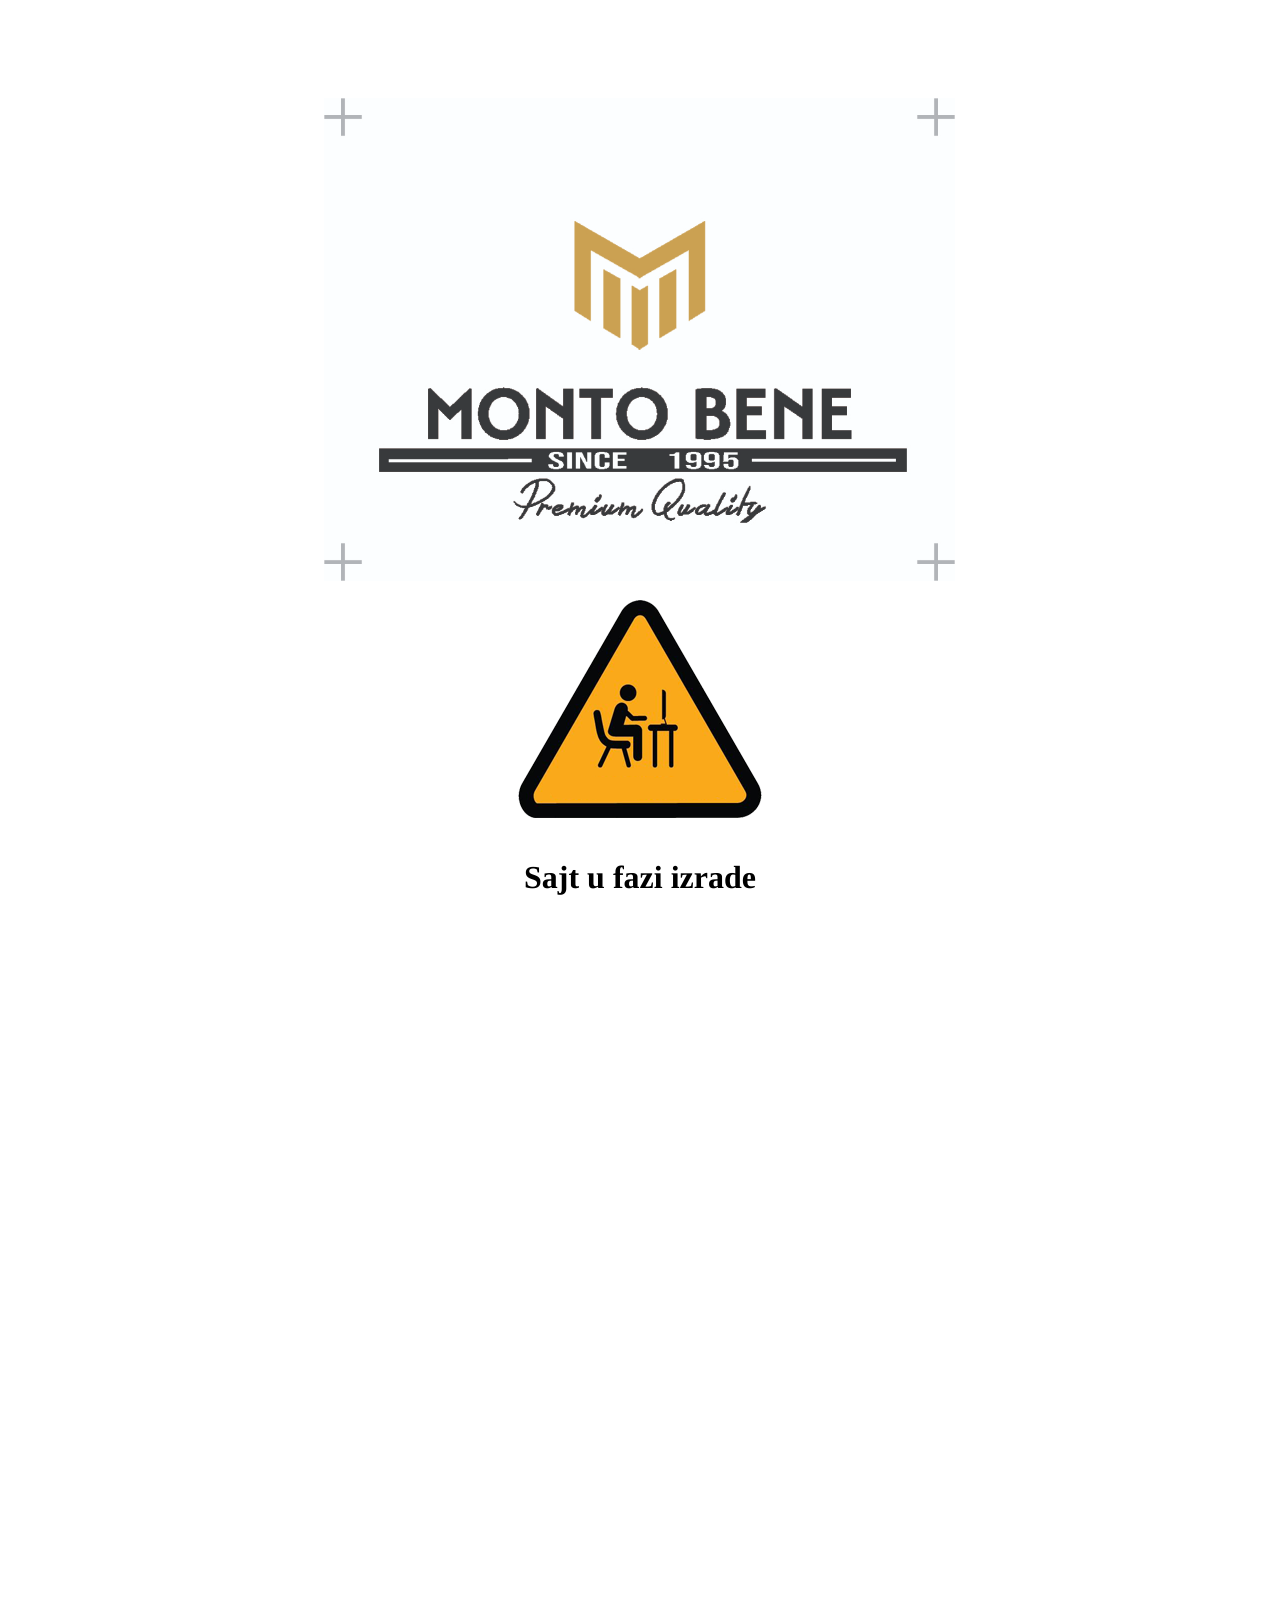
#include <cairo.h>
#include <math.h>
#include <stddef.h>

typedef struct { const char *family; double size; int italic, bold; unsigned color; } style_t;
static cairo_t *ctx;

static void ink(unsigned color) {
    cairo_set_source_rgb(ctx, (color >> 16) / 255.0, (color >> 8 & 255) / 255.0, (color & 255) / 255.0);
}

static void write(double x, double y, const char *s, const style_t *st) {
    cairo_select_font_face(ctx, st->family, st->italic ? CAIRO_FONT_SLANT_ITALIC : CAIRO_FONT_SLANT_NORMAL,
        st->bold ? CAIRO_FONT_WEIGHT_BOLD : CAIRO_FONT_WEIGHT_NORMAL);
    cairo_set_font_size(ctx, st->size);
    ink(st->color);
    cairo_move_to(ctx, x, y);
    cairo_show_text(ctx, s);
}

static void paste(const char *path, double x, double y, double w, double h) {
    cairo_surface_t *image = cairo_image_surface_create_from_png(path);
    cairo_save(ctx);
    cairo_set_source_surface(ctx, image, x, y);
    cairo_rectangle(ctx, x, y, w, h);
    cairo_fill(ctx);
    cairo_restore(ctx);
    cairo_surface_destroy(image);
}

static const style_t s1 = {"Liberation Serif", 32, 0, 1, 0x000000};

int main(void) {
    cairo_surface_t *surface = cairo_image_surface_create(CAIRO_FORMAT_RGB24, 1279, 1605);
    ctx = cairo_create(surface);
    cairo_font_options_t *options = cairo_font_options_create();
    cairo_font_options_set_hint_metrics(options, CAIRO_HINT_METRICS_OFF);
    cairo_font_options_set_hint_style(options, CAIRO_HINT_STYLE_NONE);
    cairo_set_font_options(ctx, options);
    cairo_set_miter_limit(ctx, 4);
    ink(0xffffff);
    cairo_paint(ctx);
    paste("pic1.png", 324, 98, 631, 483);
    paste("pic2.png", 518, 600, 244, 218);
    write(524, 888, "Sajt u fazi izrade", &s1);
    cairo_surface_write_to_png(surface, "screenshot.png");
    cairo_font_options_destroy(options);
    cairo_destroy(ctx);
    cairo_surface_destroy(surface);
    return 0;
}
